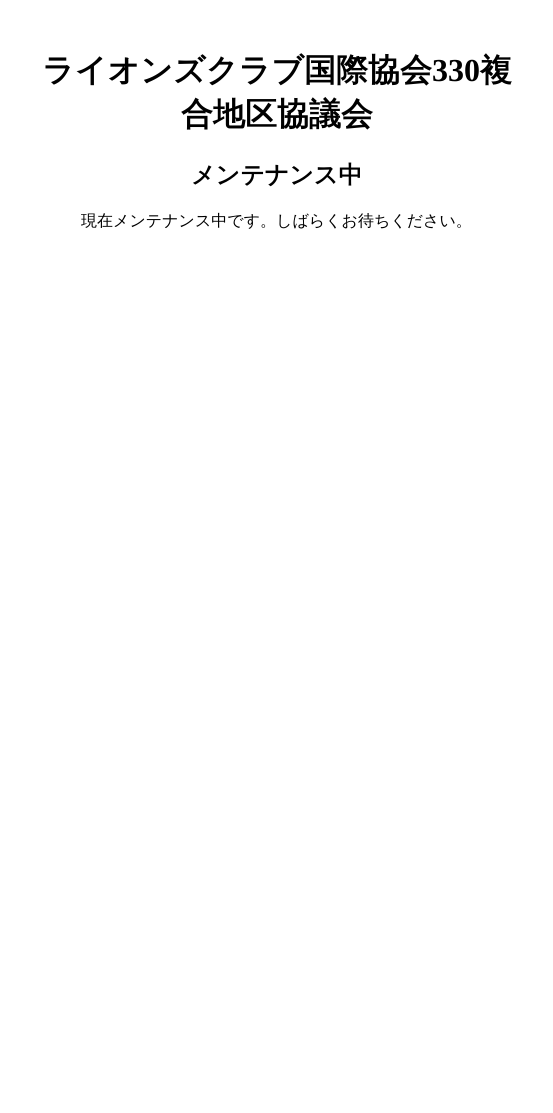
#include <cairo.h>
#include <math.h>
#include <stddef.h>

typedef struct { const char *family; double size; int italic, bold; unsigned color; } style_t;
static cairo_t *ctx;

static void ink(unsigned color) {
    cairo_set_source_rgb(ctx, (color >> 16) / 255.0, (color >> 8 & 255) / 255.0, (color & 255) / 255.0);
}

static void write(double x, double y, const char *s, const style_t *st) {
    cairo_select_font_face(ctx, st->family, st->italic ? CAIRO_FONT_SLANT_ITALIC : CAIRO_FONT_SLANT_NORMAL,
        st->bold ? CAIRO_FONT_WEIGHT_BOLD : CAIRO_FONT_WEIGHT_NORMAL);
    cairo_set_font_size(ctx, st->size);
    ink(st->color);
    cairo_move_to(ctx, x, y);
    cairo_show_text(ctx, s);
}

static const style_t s1 = {"WenQuanYi Zen Hei", 32, 0, 1, 0x000000};
static const style_t s2 = {"Liberation Serif", 32, 0, 1, 0x000000};
static const style_t s3 = {"WenQuanYi Zen Hei", 24, 0, 1, 0x000000};
static const style_t s4 = {"WenQuanYi Zen Hei Medium", 16, 0, 0, 0x000000};

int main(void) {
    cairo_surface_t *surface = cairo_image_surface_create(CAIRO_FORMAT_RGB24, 553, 1113);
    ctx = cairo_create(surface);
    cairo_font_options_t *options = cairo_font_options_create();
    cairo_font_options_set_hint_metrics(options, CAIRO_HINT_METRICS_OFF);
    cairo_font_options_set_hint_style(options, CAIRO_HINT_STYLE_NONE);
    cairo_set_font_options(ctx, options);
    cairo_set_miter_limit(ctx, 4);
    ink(0xffffff);
    cairo_paint(ctx);
    write(42, 81, "ライオンズクラブ国際協会", &s1);
    write(432, 81, "330", &s2);
    write(480, 81, "複", &s1);
    write(181, 125, "合地区協議会", &s1);
    write(191, 183, "メンテナンス中", &s3);
    write(81, 226, "現在メンテナンス中です。しばらくお待ちください。", &s4);
    cairo_surface_write_to_png(surface, "screenshot.png");
    cairo_font_options_destroy(options);
    cairo_destroy(ctx);
    cairo_surface_destroy(surface);
    return 0;
}
